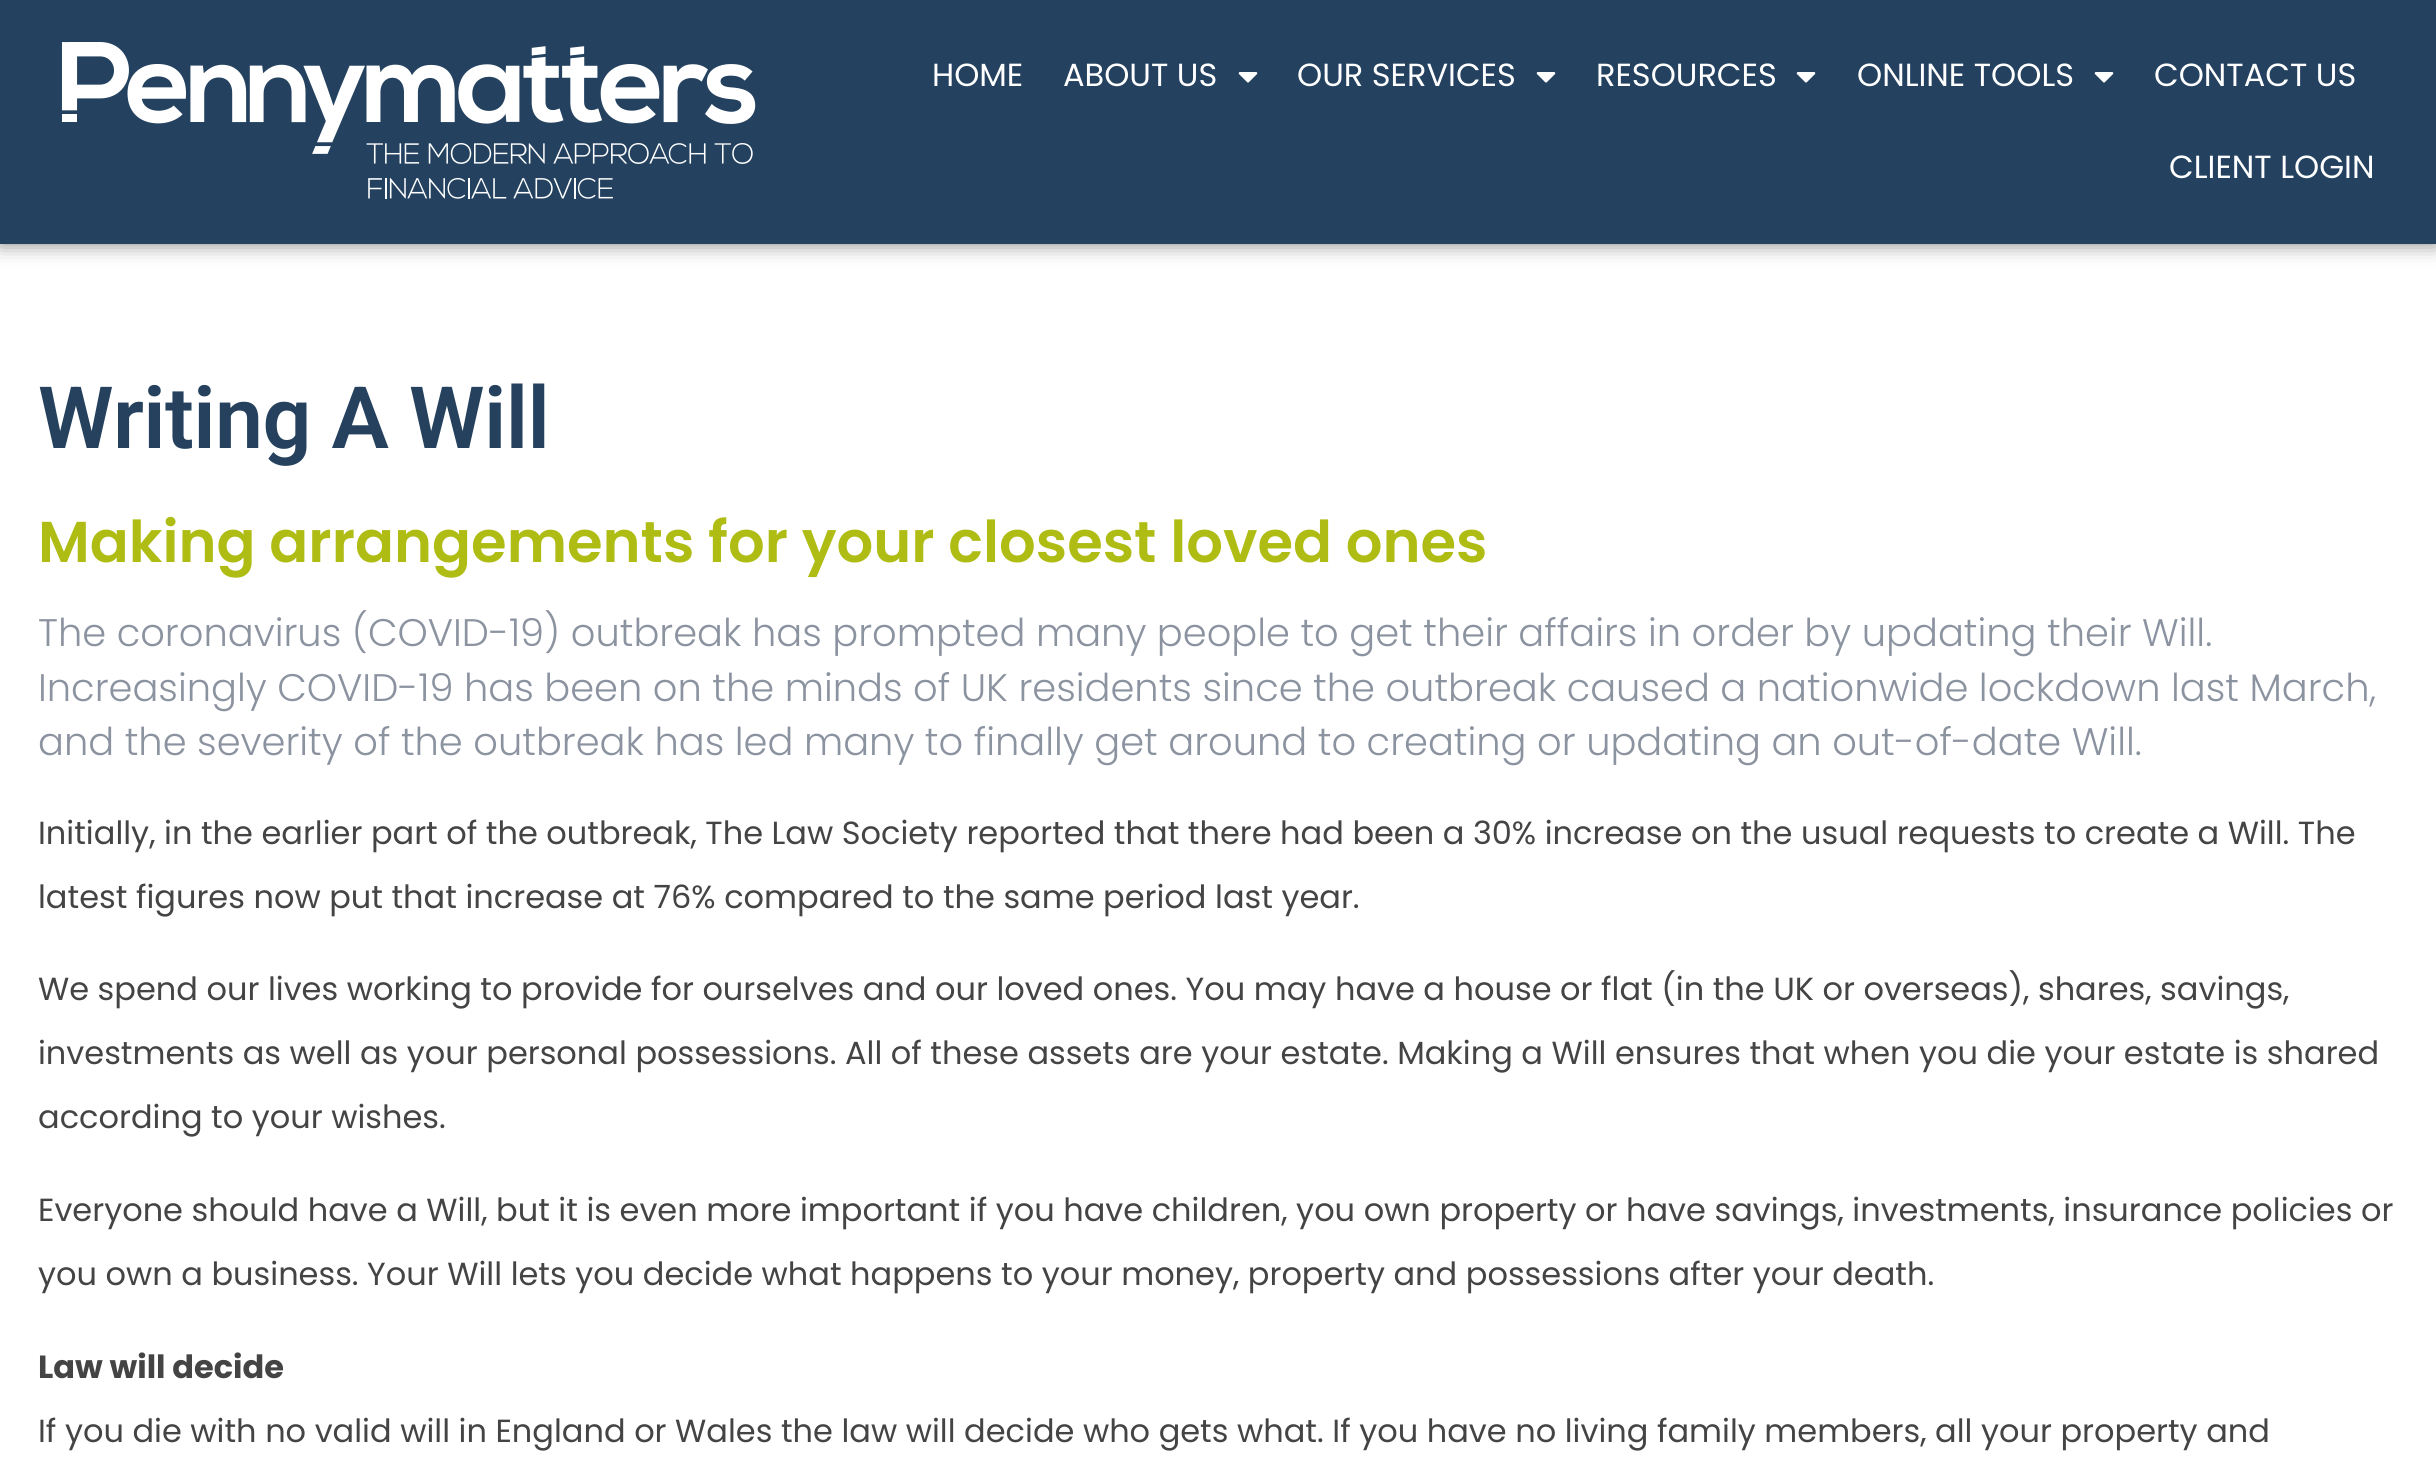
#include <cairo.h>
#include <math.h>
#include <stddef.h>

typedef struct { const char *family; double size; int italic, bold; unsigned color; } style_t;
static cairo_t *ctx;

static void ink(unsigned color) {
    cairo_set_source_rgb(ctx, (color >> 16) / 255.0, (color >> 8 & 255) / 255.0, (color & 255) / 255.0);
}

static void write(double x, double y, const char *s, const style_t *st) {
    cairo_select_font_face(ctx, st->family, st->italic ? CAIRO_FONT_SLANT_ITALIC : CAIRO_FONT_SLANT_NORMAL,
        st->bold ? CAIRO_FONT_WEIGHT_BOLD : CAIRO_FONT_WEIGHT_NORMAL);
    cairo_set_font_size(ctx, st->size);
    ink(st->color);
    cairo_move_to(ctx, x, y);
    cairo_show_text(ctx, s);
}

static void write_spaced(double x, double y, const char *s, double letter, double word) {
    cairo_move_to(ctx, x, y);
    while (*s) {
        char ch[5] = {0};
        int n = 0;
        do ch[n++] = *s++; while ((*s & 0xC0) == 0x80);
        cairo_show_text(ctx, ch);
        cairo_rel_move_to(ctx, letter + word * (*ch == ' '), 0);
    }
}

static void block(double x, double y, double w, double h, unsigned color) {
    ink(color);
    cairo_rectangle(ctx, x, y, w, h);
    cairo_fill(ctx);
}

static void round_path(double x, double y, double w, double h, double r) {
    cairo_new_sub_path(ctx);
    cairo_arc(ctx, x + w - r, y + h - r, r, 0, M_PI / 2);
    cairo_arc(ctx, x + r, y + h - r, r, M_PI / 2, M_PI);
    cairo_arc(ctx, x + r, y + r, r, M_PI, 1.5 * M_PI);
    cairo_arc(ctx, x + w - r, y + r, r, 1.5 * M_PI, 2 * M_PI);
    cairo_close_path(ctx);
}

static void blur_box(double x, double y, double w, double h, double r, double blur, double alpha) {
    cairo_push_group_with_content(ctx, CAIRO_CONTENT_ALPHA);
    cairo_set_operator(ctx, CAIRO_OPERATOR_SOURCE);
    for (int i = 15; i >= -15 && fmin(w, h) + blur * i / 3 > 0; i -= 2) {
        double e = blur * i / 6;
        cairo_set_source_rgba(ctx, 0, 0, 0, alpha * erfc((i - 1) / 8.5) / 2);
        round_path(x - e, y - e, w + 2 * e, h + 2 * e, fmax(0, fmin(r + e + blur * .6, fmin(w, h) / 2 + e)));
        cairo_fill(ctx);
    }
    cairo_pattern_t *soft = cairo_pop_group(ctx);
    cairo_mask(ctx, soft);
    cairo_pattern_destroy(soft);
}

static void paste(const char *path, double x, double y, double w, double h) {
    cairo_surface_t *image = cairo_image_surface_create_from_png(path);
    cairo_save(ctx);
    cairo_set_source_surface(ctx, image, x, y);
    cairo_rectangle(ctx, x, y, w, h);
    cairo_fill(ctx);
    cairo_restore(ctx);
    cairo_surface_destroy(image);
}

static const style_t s1 = {"Poppins", 32, 0, 0, 0xffffff};
static const style_t s2 = {"Poppins SemiBold", 57.6, 0, 0, 0xafbc13};
static const style_t s3 = {"Poppins Light", 38.4, 0, 0, 0x8c93a0};
static const style_t s4 = {"Poppins", 32, 0, 0, 0x444444};
static const style_t s5 = {"Poppins", 32, 0, 1, 0x444444};

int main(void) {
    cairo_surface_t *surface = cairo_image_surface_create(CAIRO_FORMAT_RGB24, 2436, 1476);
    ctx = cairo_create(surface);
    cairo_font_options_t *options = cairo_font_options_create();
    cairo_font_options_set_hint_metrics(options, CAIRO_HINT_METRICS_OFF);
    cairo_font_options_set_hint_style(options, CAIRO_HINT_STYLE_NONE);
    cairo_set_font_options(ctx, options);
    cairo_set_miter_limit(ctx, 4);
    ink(0xffffff);
    cairo_paint(ctx);
    ink(0x000000);
    blur_box(0, 0, 2436, 244, 0, 10, 0.5);
    block(0, 0, 2436, 244, 0x244260);
    paste("pic1.png", 61, 42, 695, 157);
    write(932, 86, "HOME", &s1);
    write(1063, 86, "ABOUT US", &s1);
    paste("pic2.png", 1238, 72, 20, 11);
    write(1297, 86, "OUR SERVICES", &s1);
    paste("pic2.png", 1536, 72, 20, 11);
    write(1596, 86, "RESOURCES", &s1);
    paste("pic2.png", 1796, 72, 20, 11);
    write(1857, 86, "ONLINE TOOLS", &s1);
    paste("pic2.png", 2094, 72, 20, 11);
    write(2154, 86, "CONTACT US", &s1);
    write(2169, 178, "CLIENT LOGIN", &s1);
    cairo_select_font_face(ctx, "Roboto SemiBold", CAIRO_FONT_SLANT_NORMAL, CAIRO_FONT_WEIGHT_NORMAL);
    cairo_set_font_size(ctx, 86);
    ink(0x26415d);
    write_spaced(38, 448, "Writing A Will", -0.6, 0);
    write(38, 562, "Making arrangements for your closest loved ones", &s2);
    write(38, 646, "The coronavirus (COVID-19) outbreak has prompted many people to get their affairs in order by updating their Will.", &s3);
    write(38, 701, "Increasingly COVID-19 has been on the minds of UK residents since the outbreak caused a nationwide lockdown last March,", &s3);
    write(38, 755, "and the severity of the outbreak has led many to finally get around to creating or updating an out-of-date Will.", &s3);
    write(38, 844, "Initially, in the earlier part of the outbreak, The Law Society reported that there had been a 30% increase on the usual requests to create a Will. The", &s4);
    write(38, 908, "latest figures now put that increase at 76% compared to the same period last year.", &s4);
    write(38, 1000, "We spend our lives working to provide for ourselves and our loved ones. You may have a house or flat (in the UK or overseas), shares, savings,", &s4);
    write(38, 1064, "investments as well as your personal possessions. All of these assets are your estate. Making a Will ensures that when you die your estate is shared", &s4);
    write(38, 1128, "according to your wishes.", &s4);
    write(38, 1221, "Everyone should have a Will, but it is even more important if you have children, you own property or have savings, investments, insurance policies or", &s4);
    write(38, 1285, "you own a business. Your Will lets you decide what happens to your money, property and possessions after your death.", &s4);
    write(38, 1378, "Law will decide", &s5);
    write(38, 1442, "If you die with no valid will in England or Wales the law will decide who gets what. If you have no living family members, all your property and", &s4);
    cairo_surface_write_to_png(surface, "screenshot.png");
    cairo_font_options_destroy(options);
    cairo_destroy(ctx);
    cairo_surface_destroy(surface);
    return 0;
}
